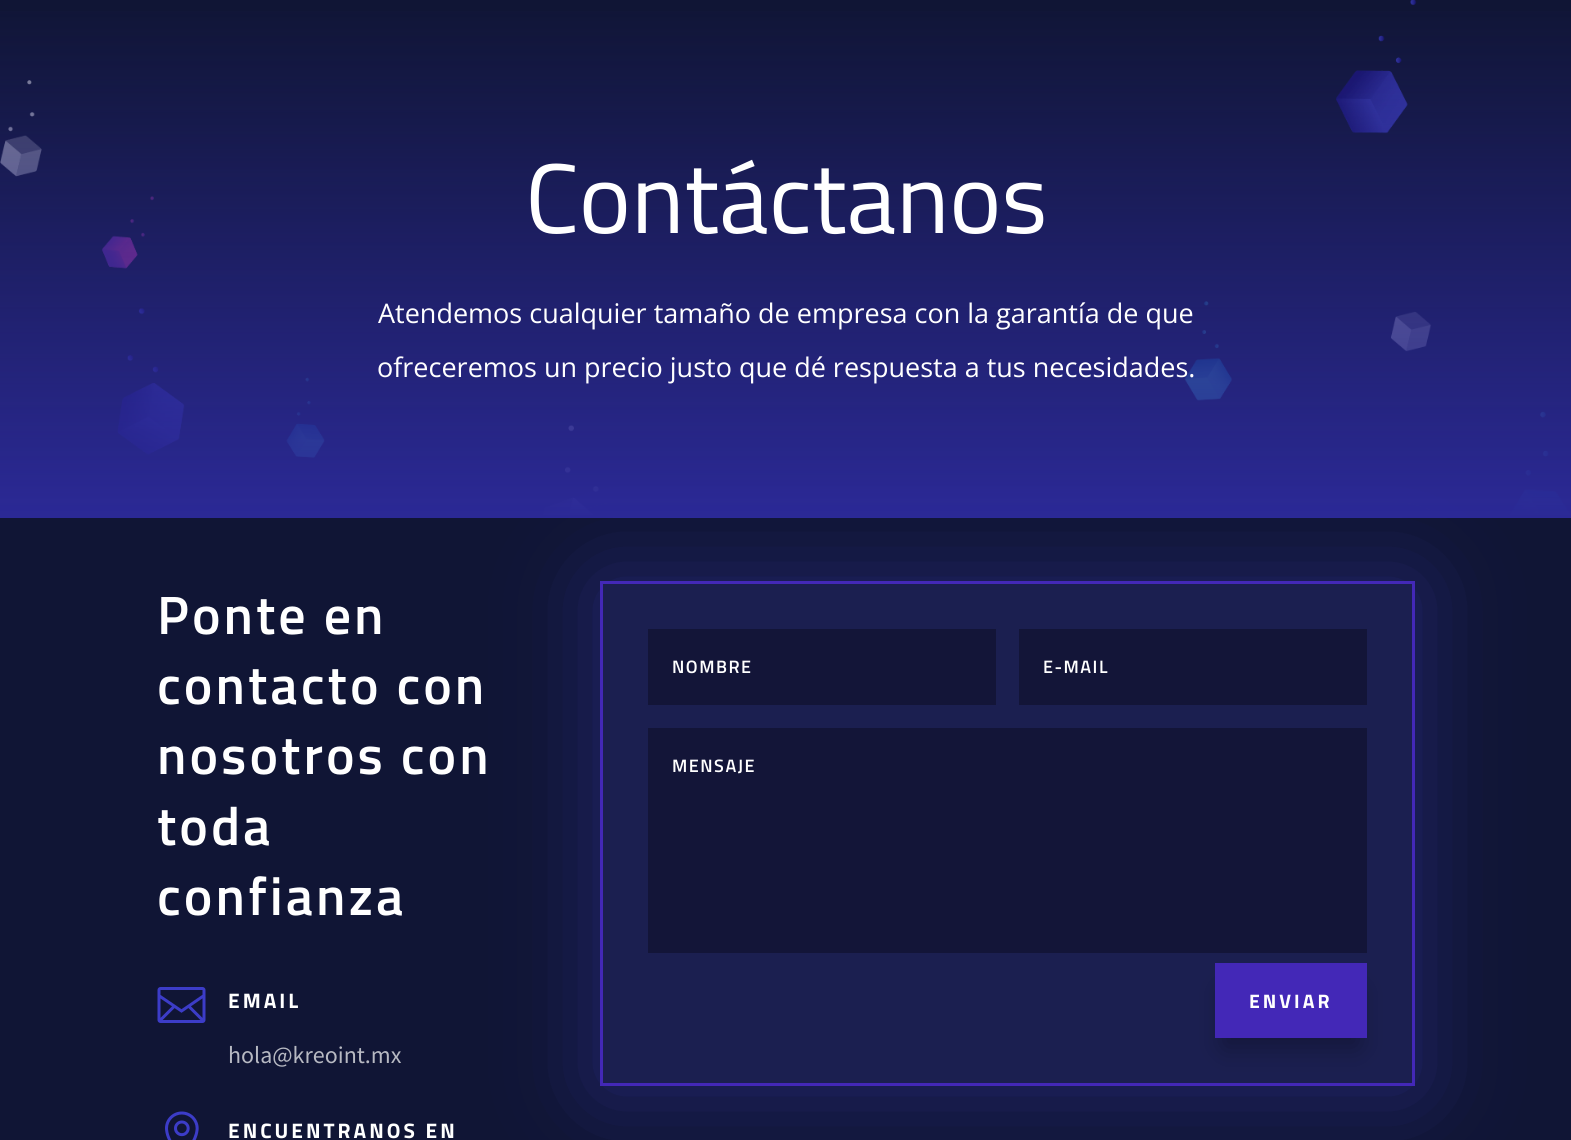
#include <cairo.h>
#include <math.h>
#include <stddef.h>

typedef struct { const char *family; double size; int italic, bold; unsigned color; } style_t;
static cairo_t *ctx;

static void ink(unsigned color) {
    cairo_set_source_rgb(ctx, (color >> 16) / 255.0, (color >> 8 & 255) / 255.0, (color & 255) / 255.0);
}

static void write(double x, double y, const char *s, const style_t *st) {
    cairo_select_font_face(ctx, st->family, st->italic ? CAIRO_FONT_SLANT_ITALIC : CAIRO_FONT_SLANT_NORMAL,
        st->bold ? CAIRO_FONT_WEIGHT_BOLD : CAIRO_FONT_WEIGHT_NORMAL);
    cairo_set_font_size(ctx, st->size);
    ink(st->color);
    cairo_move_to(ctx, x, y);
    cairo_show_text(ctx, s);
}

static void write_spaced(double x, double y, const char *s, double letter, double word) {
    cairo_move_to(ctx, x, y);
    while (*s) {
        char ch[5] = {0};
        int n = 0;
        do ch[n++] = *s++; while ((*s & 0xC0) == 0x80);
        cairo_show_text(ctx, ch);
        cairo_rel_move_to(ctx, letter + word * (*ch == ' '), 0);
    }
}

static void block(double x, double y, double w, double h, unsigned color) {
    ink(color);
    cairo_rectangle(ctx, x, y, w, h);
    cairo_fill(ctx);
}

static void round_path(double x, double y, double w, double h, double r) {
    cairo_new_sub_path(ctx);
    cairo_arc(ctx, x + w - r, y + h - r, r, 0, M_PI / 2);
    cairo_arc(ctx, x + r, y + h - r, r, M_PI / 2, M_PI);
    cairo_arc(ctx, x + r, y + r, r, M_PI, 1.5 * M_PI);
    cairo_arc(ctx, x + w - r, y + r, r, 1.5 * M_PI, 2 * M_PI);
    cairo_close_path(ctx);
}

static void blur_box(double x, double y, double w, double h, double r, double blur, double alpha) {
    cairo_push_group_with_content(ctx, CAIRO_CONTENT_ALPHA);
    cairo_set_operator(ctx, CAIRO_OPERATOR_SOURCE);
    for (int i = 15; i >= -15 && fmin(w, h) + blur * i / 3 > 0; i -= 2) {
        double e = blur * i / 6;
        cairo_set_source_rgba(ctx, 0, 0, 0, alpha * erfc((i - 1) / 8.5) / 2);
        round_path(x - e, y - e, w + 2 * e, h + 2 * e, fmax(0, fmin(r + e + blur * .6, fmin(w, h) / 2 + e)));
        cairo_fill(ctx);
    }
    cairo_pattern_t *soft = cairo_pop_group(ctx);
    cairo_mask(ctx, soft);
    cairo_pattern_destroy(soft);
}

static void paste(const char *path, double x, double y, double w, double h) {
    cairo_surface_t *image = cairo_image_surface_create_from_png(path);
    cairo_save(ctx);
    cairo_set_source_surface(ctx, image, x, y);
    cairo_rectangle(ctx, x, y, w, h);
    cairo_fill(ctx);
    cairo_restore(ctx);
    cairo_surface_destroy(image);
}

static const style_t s1 = {"Titillium Web", 99, 0, 0, 0xffffff};
static const style_t s2 = {"Open Sans", 27, 0, 0, 0xffffff};
static const style_t s3 = {"Source Sans Pro", 24, 0, 0, 0xb7b9c2};

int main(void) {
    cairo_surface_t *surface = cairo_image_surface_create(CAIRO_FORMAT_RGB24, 1571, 1140);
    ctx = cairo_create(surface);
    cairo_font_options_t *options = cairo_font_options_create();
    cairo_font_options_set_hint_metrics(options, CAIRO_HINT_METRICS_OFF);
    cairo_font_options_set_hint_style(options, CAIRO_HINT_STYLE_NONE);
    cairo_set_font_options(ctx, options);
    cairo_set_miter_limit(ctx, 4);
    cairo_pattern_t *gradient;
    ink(0x101535);
    cairo_paint(ctx);
    paste("pic1.png", 0, 0, 1571, 515);
    gradient = cairo_pattern_create_linear(786, -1.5, 786, 518);
    cairo_pattern_add_color_stop_rgba(gradient, 0, 0.169, 0.161, 0.588, 0);
    cairo_pattern_add_color_stop_rgba(gradient, 1, 0.169, 0.161, 0.588, 1);
    cairo_set_source(ctx, gradient);
    cairo_pattern_destroy(gradient);
    cairo_rectangle(ctx, 0, 11, 1571, 507);
    cairo_fill(ctx);
    write(525, 233, "Contáctanos", &s1);
    write(378, 323, "Atendemos cualquier tamaño de empresa con la garantía de que", &s2);
    write(377, 377, "ofreceremos un precio justo que dé respuesta a tus necesidades.", &s2);
    cairo_select_font_face(ctx, "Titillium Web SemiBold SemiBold", CAIRO_FONT_SLANT_NORMAL, CAIRO_FONT_WEIGHT_NORMAL);
    cairo_set_font_size(ctx, 54);
    write_spaced(157, 634, "Ponte en", 3, 0);
    write_spaced(157, 704, "contacto con", 3, 0);
    write_spaced(157, 774, "nosotros con", 3, 0);
    write_spaced(157, 845, "toda", 3, 0);
    write_spaced(157, 915, "confianza", 3, 0);
    paste("pic2.png", 157, 987, 49, 36);
    cairo_select_font_face(ctx, "Titillium Web", CAIRO_FONT_SLANT_NORMAL, CAIRO_FONT_WEIGHT_BOLD);
    cairo_set_font_size(ctx, 21);
    write_spaced(228, 1008, "EMAIL", 3, 0);
    write(228, 1063, "hola@kreoint.mx", &s3);
    paste("pic3.png", 165, 1111, 34, 29);
    cairo_select_font_face(ctx, "Titillium Web", CAIRO_FONT_SLANT_NORMAL, CAIRO_FONT_WEIGHT_BOLD);
    cairo_set_font_size(ctx, 21);
    ink(0xffffff);
    write_spaced(228, 1138, "ENCUENTRANOS EN", 3, 0);
    ink(0x3c3cc8);
    blur_box(600, 584, 815, 505, 0, 45, 0.4);
    cairo_rectangle(ctx, 601.5, 582.5, 812, 502);
    ink(0x4328b7);
    cairo_set_line_width(ctx, 3);
    cairo_stroke(ctx);
    block(603, 584, 809, 499, 0x1b1f50);
    block(648, 629, 348, 76, 0x131538);
    cairo_select_font_face(ctx, "Titillium Web SemiBold SemiBold", CAIRO_FONT_SLANT_NORMAL, CAIRO_FONT_WEIGHT_NORMAL);
    cairo_set_font_size(ctx, 18);
    ink(0xffffff);
    write_spaced(672, 673, "NOMBRE", 1.5, 0);
    block(1019, 629, 348, 76, 0x131538);
    ink(0xffffff);
    write_spaced(1043, 673, "E-MAIL", 1.5, 0);
    block(648, 728, 719, 225, 0x131538);
    ink(0xffffff);
    write_spaced(672, 772, "MENSAJE", 1.5, 0);
    ink(0x000000);
    blur_box(1224, 990, 134, 57, 0, 13.5, 0.3);
    block(1215, 963, 152, 75, 0x4328b7);
    cairo_select_font_face(ctx, "Titillium Web", CAIRO_FONT_SLANT_NORMAL, CAIRO_FONT_WEIGHT_BOLD);
    cairo_set_font_size(ctx, 19.5);
    ink(0xffffff);
    write_spaced(1249, 1008, "ENVIAR", 3, 0);
    cairo_surface_write_to_png(surface, "screenshot.png");
    cairo_font_options_destroy(options);
    cairo_destroy(ctx);
    cairo_surface_destroy(surface);
    return 0;
}
